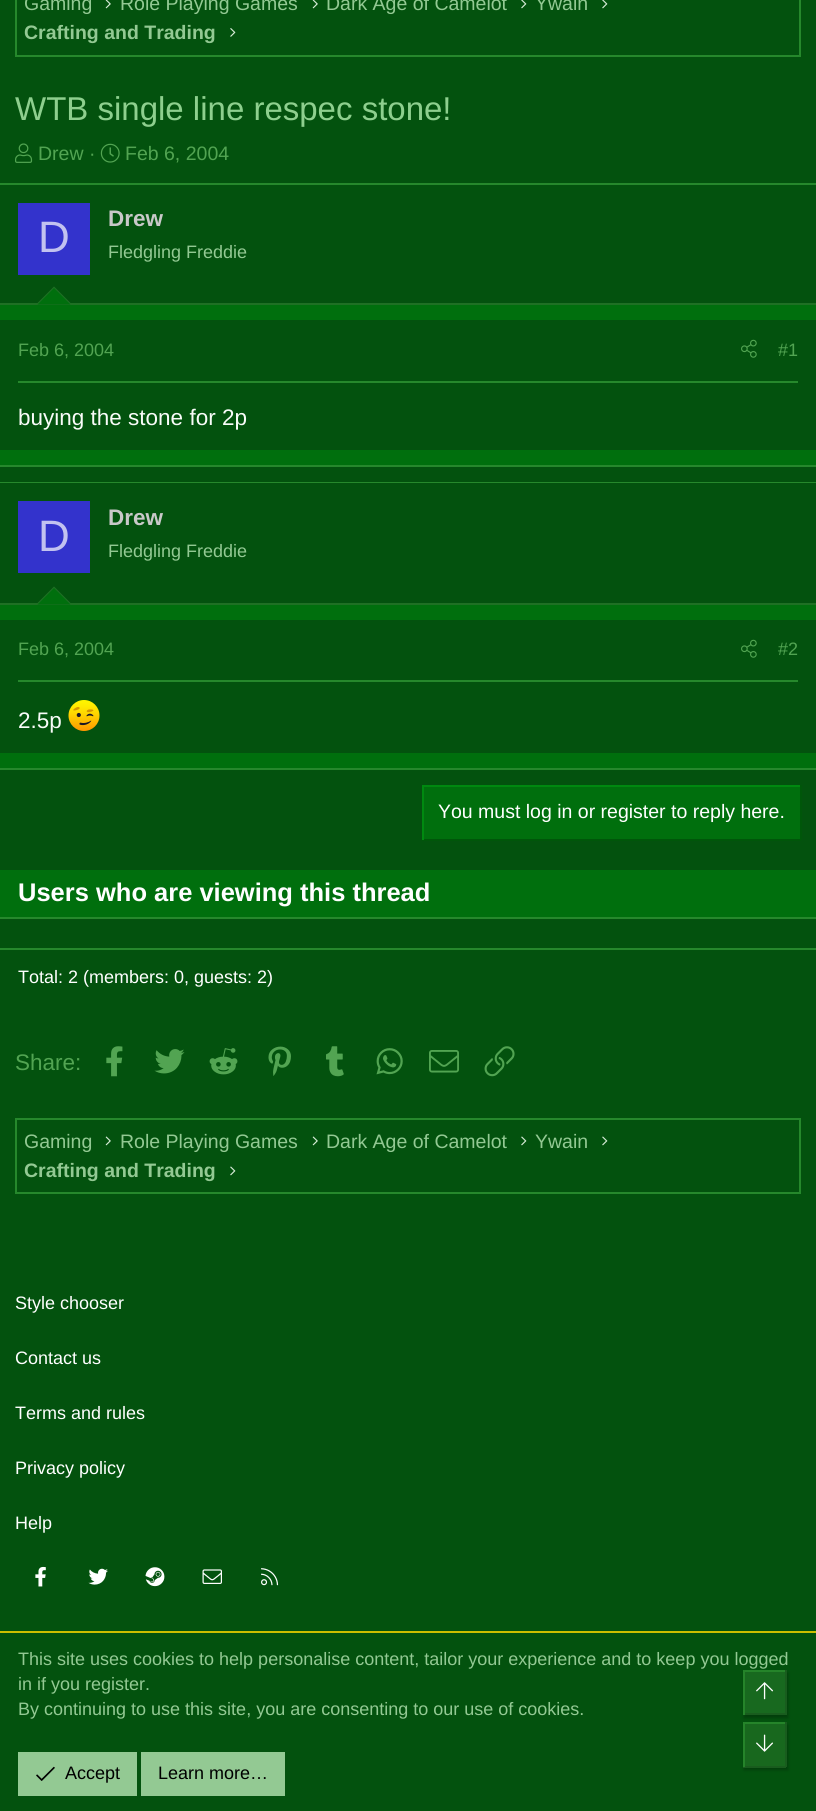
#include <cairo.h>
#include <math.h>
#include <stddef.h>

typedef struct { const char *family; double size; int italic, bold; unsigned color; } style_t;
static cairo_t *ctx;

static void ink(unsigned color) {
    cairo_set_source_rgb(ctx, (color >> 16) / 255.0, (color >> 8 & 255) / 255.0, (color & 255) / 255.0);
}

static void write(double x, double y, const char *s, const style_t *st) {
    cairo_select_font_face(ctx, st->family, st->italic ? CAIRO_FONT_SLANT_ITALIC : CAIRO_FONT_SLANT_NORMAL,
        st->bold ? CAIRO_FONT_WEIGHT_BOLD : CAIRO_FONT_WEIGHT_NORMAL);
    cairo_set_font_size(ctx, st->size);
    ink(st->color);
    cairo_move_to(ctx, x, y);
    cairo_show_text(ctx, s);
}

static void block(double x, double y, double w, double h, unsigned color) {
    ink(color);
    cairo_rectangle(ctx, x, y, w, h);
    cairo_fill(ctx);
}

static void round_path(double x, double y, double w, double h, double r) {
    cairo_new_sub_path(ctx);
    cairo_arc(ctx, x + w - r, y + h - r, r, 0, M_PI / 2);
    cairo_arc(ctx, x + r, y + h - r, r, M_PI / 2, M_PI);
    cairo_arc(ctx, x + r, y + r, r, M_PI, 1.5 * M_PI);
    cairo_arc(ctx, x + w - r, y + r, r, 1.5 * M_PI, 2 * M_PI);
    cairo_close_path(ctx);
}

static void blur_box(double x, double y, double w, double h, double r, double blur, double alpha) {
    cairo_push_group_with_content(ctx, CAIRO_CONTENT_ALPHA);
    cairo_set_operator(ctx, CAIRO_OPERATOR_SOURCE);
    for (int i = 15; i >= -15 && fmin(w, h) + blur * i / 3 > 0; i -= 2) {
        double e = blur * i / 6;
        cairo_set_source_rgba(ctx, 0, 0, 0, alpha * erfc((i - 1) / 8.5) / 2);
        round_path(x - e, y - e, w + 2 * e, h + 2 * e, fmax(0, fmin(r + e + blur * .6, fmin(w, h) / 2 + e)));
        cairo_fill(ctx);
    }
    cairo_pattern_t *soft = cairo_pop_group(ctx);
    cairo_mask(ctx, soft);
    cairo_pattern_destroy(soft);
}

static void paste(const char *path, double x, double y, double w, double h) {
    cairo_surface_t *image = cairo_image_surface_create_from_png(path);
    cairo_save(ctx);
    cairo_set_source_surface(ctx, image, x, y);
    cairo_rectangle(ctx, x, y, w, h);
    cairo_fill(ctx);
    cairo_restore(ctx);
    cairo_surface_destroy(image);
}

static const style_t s1 = {"Liberation Sans", 19.5, 0, 0, 0x93c993};
static const style_t s2 = {"Liberation Sans", 19.5, 0, 1, 0x93c993};
static const style_t s3 = {"Liberation Sans", 33, 0, 0, 0x8ecf8e};
static const style_t s4 = {"Liberation Sans", 19.5, 0, 0, 0x52a452};
static const style_t s5 = {"Liberation Sans", 44, 0, 0, 0xc2c2f0};
static const style_t s6 = {"Liberation Sans", 22.5, 0, 1, 0xc9c9c9};
static const style_t s7 = {"Liberation Sans", 18, 0, 0, 0x93c993};
static const style_t s8 = {"Liberation Sans", 18, 0, 0, 0x52a452};
static const style_t s9 = {"Liberation Sans", 22.5, 0, 0, 0xf9fcf9};
static const style_t s10 = {"Liberation Sans", 19.5, 0, 0, 0xffffff};
static const style_t s11 = {"Liberation Sans", 25.5, 0, 1, 0xffffff};
static const style_t s12 = {"Liberation Sans", 18, 0, 0, 0xffffff};
static const style_t s13 = {"Liberation Sans", 22.5, 0, 0, 0x52a452};
static const style_t s14 = {"Liberation Sans", 18, 0, 0, 0x000000};

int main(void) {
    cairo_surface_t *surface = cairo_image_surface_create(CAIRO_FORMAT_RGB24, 816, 1811);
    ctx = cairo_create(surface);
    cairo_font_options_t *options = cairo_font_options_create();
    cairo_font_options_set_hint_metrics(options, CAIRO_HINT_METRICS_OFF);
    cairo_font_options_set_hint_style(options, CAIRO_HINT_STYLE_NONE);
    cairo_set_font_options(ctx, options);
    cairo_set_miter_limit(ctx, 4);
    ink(0x03520e);
    cairo_paint(ctx);
    cairo_rectangle(ctx, 16, -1, 784, 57);
    ink(0x26882c);
    cairo_stroke(ctx);
    write(24, 10, "Gaming", &s1);
    paste("pic1.png", 105, 0, 6, 9);
    write(120, 10, "Role Playing Games", &s1);
    paste("pic1.png", 312, 0, 6, 9);
    write(326, 10, "Dark Age of Camelot", &s1);
    paste("pic2.png", 521, 0, 6, 9);
    write(535, 10, "Ywain", &s1);
    paste("pic2.png", 602, 0, 6, 9);
    write(24, 39, "Crafting and Trading", &s2);
    paste("pic3.png", 230, 28, 6, 9);
    write(15, 120, "WTB single line respec stone!", &s3);
    paste("pic4.png", 15, 143, 18, 20);
    write(38, 160, "Drew ·", &s4);
    paste("pic5.png", 100, 143, 20, 20);
    write(125, 160, "Feb 6, 2004", &s4);
    block(0, 305, 816, 160, 0x006f0d);
    block(0, 183, 816, 2, 0x26882c);
    block(0, 465, 816, 2, 0x26882c);
    block(0, 303, 816, 2, 0x1f7024);
    block(18, 203, 72, 72, 0x3333cc);
    write(38, 252, "D", &s5);
    write(108, 226, "Drew", &s6);
    write(108, 258, "Fledgling Freddie", &s7);
    ink(0x1f7024);
    cairo_new_path(ctx);
    cairo_move_to(ctx, 72, 304.5);
    cairo_line_to(ctx, 36, 304.5);
    cairo_line_to(ctx, 54, 286.5);
    cairo_close_path(ctx);
    cairo_fill(ctx);
    ink(0x006f0d);
    cairo_new_path(ctx);
    cairo_move_to(ctx, 70.5, 304.5);
    cairo_line_to(ctx, 37.5, 304.5);
    cairo_line_to(ctx, 54, 288);
    cairo_close_path(ctx);
    cairo_fill(ctx);
    block(0, 320, 816, 130, 0x03520e);
    block(18, 381, 780, 2, 0x26882c);
    write(18, 356, "Feb 6, 2004", &s8);
    paste("pic6.png", 741, 339, 16, 19);
    write(778, 356, "#1", &s8);
    write(18, 425, "buying the stone for 2p", &s9);
    block(0, 605, 816, 163, 0x006f0d);
    block(0, 482, 816, 1, 0x26882c);
    block(0, 768, 816, 2, 0x26882c);
    block(0, 603, 816, 2, 0x1f7024);
    block(18, 501, 72, 72, 0x3333cc);
    write(38, 551, "D", &s5);
    write(108, 525, "Drew", &s6);
    write(108, 557, "Fledgling Freddie", &s7);
    ink(0x1f7024);
    cairo_new_path(ctx);
    cairo_move_to(ctx, 72, 604.5);
    cairo_line_to(ctx, 36, 604.5);
    cairo_line_to(ctx, 54, 586.5);
    cairo_close_path(ctx);
    cairo_fill(ctx);
    ink(0x006f0d);
    cairo_new_path(ctx);
    cairo_move_to(ctx, 70.5, 604.5);
    cairo_line_to(ctx, 37.5, 604.5);
    cairo_line_to(ctx, 54, 588);
    cairo_close_path(ctx);
    cairo_fill(ctx);
    block(0, 620, 816, 133, 0x03520e);
    block(18, 680, 780, 2, 0x26882c);
    write(18, 655, "Feb 6, 2004", &s8);
    paste("pic6.png", 741, 639, 16, 19);
    write(778, 655, "#2", &s8);
    write(18, 728, "2.5p", &s9);
    paste("pic7.png", 68, 700, 32, 31);
    block(424, 787, 376, 52, 0x006f0d);
    block(422, 785, 379, 2, 0x008910);
    block(800, 785, 2, 55, 0x00560a);
    block(422, 839, 379, 2, 0x00560a);
    block(422, 785, 2, 55, 0x008910);
    write(438, 818, "You must log in or register to reply here.", &s10);
    block(0, 870, 816, 47, 0x006f0d);
    block(0, 917, 816, 2, 0x26882c);
    write(18, 901, "Users who are viewing this thread", &s11);
    block(0, 948, 816, 2, 0x26882c);
    write(18, 983, "Total: 2 (members: 0, guests: 2)", &s12);
    write(15, 1070, "Share:", &s13);
    paste("pic8.png", 106, 1046, 17, 31);
    paste("pic9.png", 154, 1049, 31, 25);
    paste("pic10.png", 209, 1048, 29, 27);
    paste("pic11.png", 268, 1046, 23, 30);
    paste("pic12.png", 326, 1046, 18, 31);
    paste("pic13.png", 376, 1048, 27, 27);
    paste("pic14.png", 429, 1050, 30, 23);
    paste("pic15.png", 484, 1046, 31, 31);
    cairo_rectangle(ctx, 16, 1119, 784, 74);
    ink(0x26882c);
    cairo_stroke(ctx);
    write(24, 1148, "Gaming", &s1);
    paste("pic16.png", 105, 1136, 6, 10);
    write(120, 1148, "Role Playing Games", &s1);
    paste("pic16.png", 312, 1136, 6, 10);
    write(326, 1148, "Dark Age of Camelot", &s1);
    paste("pic17.png", 521, 1136, 6, 10);
    write(535, 1148, "Ywain", &s1);
    paste("pic17.png", 602, 1136, 6, 10);
    write(24, 1177, "Crafting and Trading", &s2);
    paste("pic17.png", 230, 1166, 6, 10);
    write(15, 1309, "Style chooser", &s12);
    write(15, 1364, "Contact us", &s12);
    write(15, 1419, "Terms and rules", &s12);
    write(15, 1474, "Privacy policy", &s12);
    write(15, 1529, "Help", &s12);
    paste("pic18.png", 35, 1566, 11, 21);
    paste("pic19.png", 88, 1568, 20, 17);
    paste("pic20.png", 145, 1567, 20, 20);
    paste("pic21.png", 202, 1569, 20, 15);
    paste("pic22.png", 261, 1568, 18, 18);
    block(0, 1631, 816, 2, 0xccbe00);
    write(18, 1665, "This site uses cookies to help personalise content, tailor your experience and to keep you logged", &s7);
    write(18, 1690, "in if you register.", &s7);
    write(18, 1715, "By continuing to use this site, you are consenting to our use of cookies.", &s7);
    block(18, 1752, 119, 44, 0x93c993);
    paste("pic23.png", 36, 1766, 19, 15);
    write(65, 1779, "Accept", &s14);
    block(141, 1752, 144, 44, 0x93c993);
    write(158, 1779, "Learn more…", &s14);
    cairo_save(ctx);
    cairo_set_fill_rule(ctx, CAIRO_FILL_RULE_EVEN_ODD);
    cairo_new_path(ctx);
    cairo_move_to(ctx, 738, 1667);
    cairo_line_to(ctx, 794, 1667);
    cairo_line_to(ctx, 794, 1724);
    cairo_line_to(ctx, 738, 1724);
    cairo_close_path(ctx);
    cairo_move_to(ctx, 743, 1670);
    cairo_line_to(ctx, 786, 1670);
    cairo_line_to(ctx, 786, 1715);
    cairo_line_to(ctx, 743, 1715);
    cairo_close_path(ctx);
    cairo_clip(ctx);
    ink(0x000000);
    blur_box(744, 1673, 44, 45, 0, 1.5, 0.25);
    cairo_restore(ctx);
    cairo_set_source_rgba(ctx, 0.122, 0.439, 0.141, 0.75);
    cairo_rectangle(ctx, 745, 1672, 40, 41);
    cairo_fill(ctx);
    block(743, 1670, 43, 2, 0x25842a);
    block(785, 1670, 2, 45, 0x195c1e);
    block(743, 1713, 43, 2, 0x195c1e);
    block(743, 1670, 2, 45, 0x25842a);
    paste("pic24.png", 756, 1682, 18, 18);
    ink(0x000000);
    blur_box(744, 1725, 44, 45, 0, 1.5, 0.25);
    block(745, 1724, 40, 42, 0x18681e);
    block(743, 1722, 43, 2, 0x25842a);
    block(785, 1722, 2, 45, 0x195c1e);
    block(743, 1766, 43, 2, 0x195c1e);
    block(743, 1722, 2, 45, 0x25842a);
    paste("pic25.png", 756, 1734, 17, 18);
    cairo_surface_write_to_png(surface, "screenshot.png");
    cairo_font_options_destroy(options);
    cairo_destroy(ctx);
    cairo_surface_destroy(surface);
    return 0;
}
